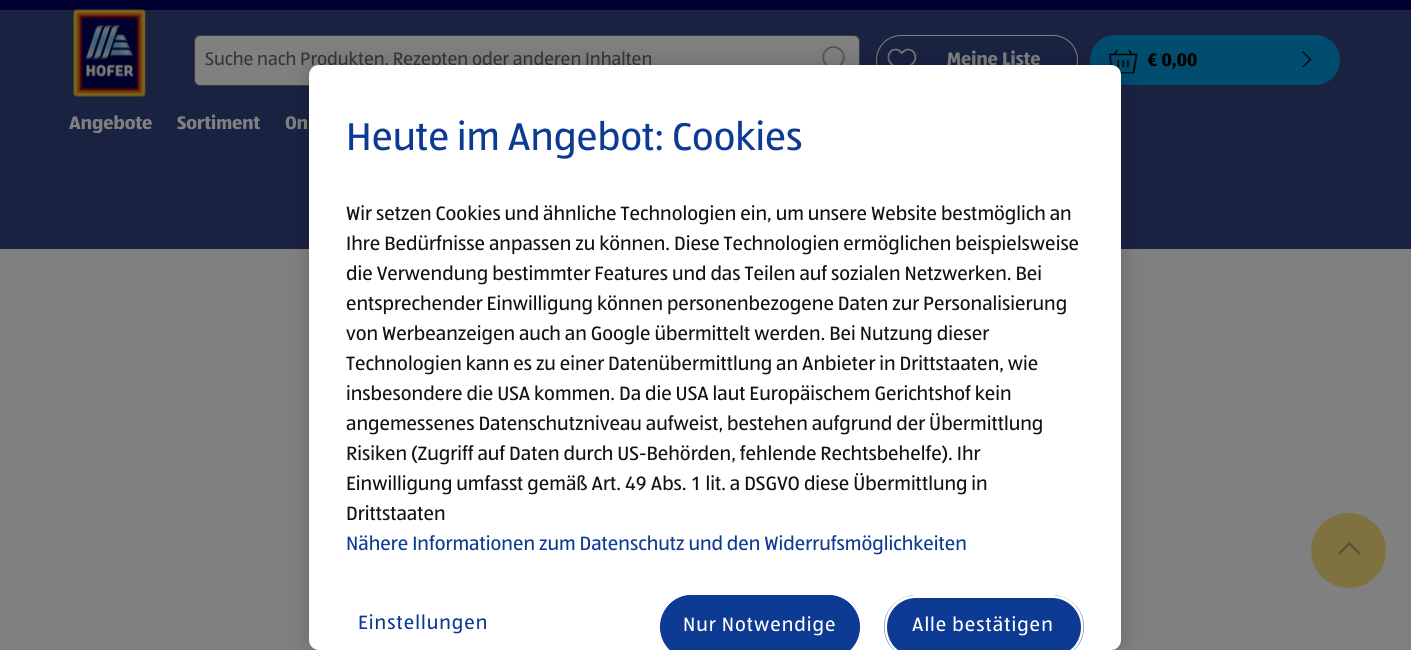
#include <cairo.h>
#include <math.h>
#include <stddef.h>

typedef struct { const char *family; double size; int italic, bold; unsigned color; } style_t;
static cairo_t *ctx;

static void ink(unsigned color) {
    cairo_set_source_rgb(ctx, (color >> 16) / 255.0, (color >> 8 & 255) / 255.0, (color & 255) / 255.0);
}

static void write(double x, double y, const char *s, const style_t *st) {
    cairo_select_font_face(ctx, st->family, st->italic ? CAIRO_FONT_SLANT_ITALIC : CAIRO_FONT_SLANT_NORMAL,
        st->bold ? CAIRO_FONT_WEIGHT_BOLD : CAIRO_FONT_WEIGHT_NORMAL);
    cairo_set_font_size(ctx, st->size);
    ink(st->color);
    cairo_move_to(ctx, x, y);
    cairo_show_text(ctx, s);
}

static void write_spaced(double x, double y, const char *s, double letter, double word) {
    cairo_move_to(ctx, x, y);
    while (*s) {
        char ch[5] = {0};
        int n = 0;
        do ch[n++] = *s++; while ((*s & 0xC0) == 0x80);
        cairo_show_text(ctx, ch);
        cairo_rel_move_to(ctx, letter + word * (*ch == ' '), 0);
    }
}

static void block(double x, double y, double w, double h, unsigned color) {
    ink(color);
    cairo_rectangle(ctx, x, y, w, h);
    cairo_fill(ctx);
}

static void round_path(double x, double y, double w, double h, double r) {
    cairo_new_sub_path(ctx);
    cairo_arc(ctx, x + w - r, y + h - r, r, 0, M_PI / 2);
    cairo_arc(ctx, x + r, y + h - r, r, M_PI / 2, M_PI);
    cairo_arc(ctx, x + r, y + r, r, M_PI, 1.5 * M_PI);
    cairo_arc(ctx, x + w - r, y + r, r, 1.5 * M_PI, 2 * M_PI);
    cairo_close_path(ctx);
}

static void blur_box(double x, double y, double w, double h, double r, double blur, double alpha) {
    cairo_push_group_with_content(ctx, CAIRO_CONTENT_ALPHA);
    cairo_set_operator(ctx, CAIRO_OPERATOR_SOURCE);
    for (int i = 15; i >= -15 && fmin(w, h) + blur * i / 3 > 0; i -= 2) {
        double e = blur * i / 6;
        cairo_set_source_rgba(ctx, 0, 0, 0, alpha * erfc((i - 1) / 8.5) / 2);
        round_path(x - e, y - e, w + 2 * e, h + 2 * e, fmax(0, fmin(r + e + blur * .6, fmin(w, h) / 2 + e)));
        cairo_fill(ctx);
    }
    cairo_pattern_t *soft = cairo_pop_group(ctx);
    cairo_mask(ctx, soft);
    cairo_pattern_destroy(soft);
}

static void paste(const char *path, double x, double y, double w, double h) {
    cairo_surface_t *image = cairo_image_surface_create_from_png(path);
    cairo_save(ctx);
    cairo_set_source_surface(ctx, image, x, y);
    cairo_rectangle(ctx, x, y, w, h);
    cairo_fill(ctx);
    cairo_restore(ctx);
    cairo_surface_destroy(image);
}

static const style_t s1 = {"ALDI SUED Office", 18.75, 0, 0, 0x363636};
static const style_t s2 = {"ALDI SUED Office", 18.75, 0, 1, 0x808080};
static const style_t s3 = {"ALDI SUED Office", 18.75, 0, 1, 0x000000};
static const style_t s4 = {"ALDI SUED Office", 40, 0, 0, 0x0d3a93};
static const style_t s5 = {"ALDI SUED Office", 20, 0, 0, 0x101316};
static const style_t s6 = {"ALDI SUED Office", 20, 0, 0, 0x0d3a93};

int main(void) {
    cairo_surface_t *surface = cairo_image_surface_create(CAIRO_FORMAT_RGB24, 1411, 650);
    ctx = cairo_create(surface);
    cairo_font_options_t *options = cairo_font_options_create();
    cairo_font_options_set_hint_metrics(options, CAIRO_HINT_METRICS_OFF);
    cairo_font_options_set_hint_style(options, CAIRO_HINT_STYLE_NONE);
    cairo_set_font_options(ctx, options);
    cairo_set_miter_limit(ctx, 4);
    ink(0x808080);
    cairo_paint(ctx);
    block(0, 10, 1411, 239, 0x1a2242);
    block(0, 0, 1411, 10, 0x000030);
    paste("pic1.png", 73, 9, 73, 88);
    ink(0x808080);
    round_path(194.5, 35.5, 665, 50, 5.5);
    cairo_fill_preserve(ctx);
    ink(0x3a3a3a);
    cairo_set_line_width(ctx, 1);
    cairo_stroke(ctx);
    round_path(194.5, 35.5, 665, 50, 5.5);
    cairo_stroke(ctx);
    write(205, 65, "Suche nach Produkten, Rezepten oder anderen Inhalten", &s1);
    paste("pic2.png", 822, 46, 24, 19);
    round_path(876.5, 35.5, 201, 49, 24.5);
    ink(0x808080);
    cairo_stroke(ctx);
    paste("pic3.png", 887, 48, 30, 17);
    write(947, 65, "Meine Liste", &s2);
    ink(0x004d6f);
    round_path(1090, 35, 250, 50, 25);
    cairo_fill(ctx);
    paste("pic4.png", 1108, 50, 30, 24);
    write(1147, 66, "€ 0,00", &s3);
    paste("pic5.png", 1302, 51, 10, 17);
    write(69, 129, "Angebote", &s2);
    write(177, 129, "Sortiment", &s2);
    write(285, 129, "On", &s2);
    ink(0x000000);
    blur_box(309, 65, 812, 585, 10, 11, 0.2);
    ink(0xffffff);
    round_path(309, 65, 812, 585, 10);
    cairo_fill(ctx);
    write(346, 150, "Heute im Angebot: Cookies", &s4);
    write(346, 220, "Wir setzen Cookies und ähnliche Technologien ein, um unsere Website bestmöglich an", &s5);
    write(346, 250, "Ihre Bedürfnisse anpassen zu können. Diese Technologien ermöglichen beispielsweise", &s5);
    write(346, 280, "die Verwendung bestimmter Features und das Teilen auf sozialen Netzwerken. Bei", &s5);
    write(346, 310, "entsprechender Einwilligung können personenbezogene Daten zur Personalisierung", &s5);
    write(346, 340, "von Werbeanzeigen auch an Google übermittelt werden. Bei Nutzung dieser", &s5);
    write(346, 370, "Technologien kann es zu einer Datenübermittlung an Anbieter in Drittstaaten, wie", &s5);
    write(346, 400, "insbesondere die USA kommen. Da die USA laut Europäischem Gerichtshof kein", &s5);
    write(346, 430, "angemessenes Datenschutzniveau aufweist, bestehen aufgrund der Übermittlung", &s5);
    write(346, 460, "Risiken (Zugriff auf Daten durch US-Behörden, fehlende Rechtsbehelfe). Ihr", &s5);
    write(346, 490, "Einwilligung umfasst gemäß Art. 49 Abs. 1 lit. a DSGVO diese Übermittlung in", &s5);
    write(346, 520, "Drittstaaten", &s5);
    write(346, 550, "Nähere Informationen zum Datenschutz und den Widerrufsmöglichkeiten", &s6);
    write_spaced(358, 629, "Einstellungen", 1, 0);
    round_path(660, 595, 200, 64, 32);
    cairo_fill(ctx);
    cairo_new_path(ctx);
    cairo_move_to(ctx, 692, 595);
    cairo_curve_to(ctx, 663, 595, 650, 630, 670, 650);
    cairo_line_to(ctx, 674, 650);
    cairo_curve_to(ctx, 667, 645, 663, 636, 663, 627);
    cairo_curve_to(ctx, 663, 611, 676, 598, 692, 598);
    cairo_line_to(ctx, 828, 598);
    cairo_curve_to(ctx, 844, 598, 857, 611, 857, 627);
    cairo_curve_to(ctx, 857, 636, 853, 645, 846, 650);
    cairo_line_to(ctx, 850, 650);
    cairo_curve_to(ctx, 870, 630, 857, 595, 828, 595);
    cairo_close_path(ctx);
    cairo_fill(ctx);
    ink(0xffffff);
    write_spaced(683, 631, "Nur Notwendige", 1, 0);
    ink(0x0d3a93);
    round_path(884, 595, 200, 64, 32);
    cairo_fill(ctx);
    ink(0xffffff);
    cairo_new_path(ctx);
    cairo_move_to(ctx, 916, 595);
    cairo_curve_to(ctx, 887, 595, 874, 630, 894, 650);
    cairo_line_to(ctx, 898, 650);
    cairo_curve_to(ctx, 891, 645, 887, 636, 887, 627);
    cairo_curve_to(ctx, 887, 611, 900, 598, 916, 598);
    cairo_line_to(ctx, 1052, 598);
    cairo_curve_to(ctx, 1068, 598, 1081, 611, 1081, 627);
    cairo_curve_to(ctx, 1081, 636, 1077, 645, 1070, 650);
    cairo_line_to(ctx, 1074, 650);
    cairo_curve_to(ctx, 1094, 630, 1081, 595, 1052, 595);
    cairo_close_path(ctx);
    cairo_fill(ctx);
    write_spaced(912, 631, "Alle bestätigen", 1, 0);
    ink(0x807240);
    cairo_new_path(ctx);
    cairo_arc(ctx, 1348.5, 550.5, 37.5, 0, 2 * M_PI);
    cairo_fill(ctx);
    paste("pic6.png", 1337, 542, 24, 14);
    cairo_surface_write_to_png(surface, "screenshot.png");
    cairo_font_options_destroy(options);
    cairo_destroy(ctx);
    cairo_surface_destroy(surface);
    return 0;
}
